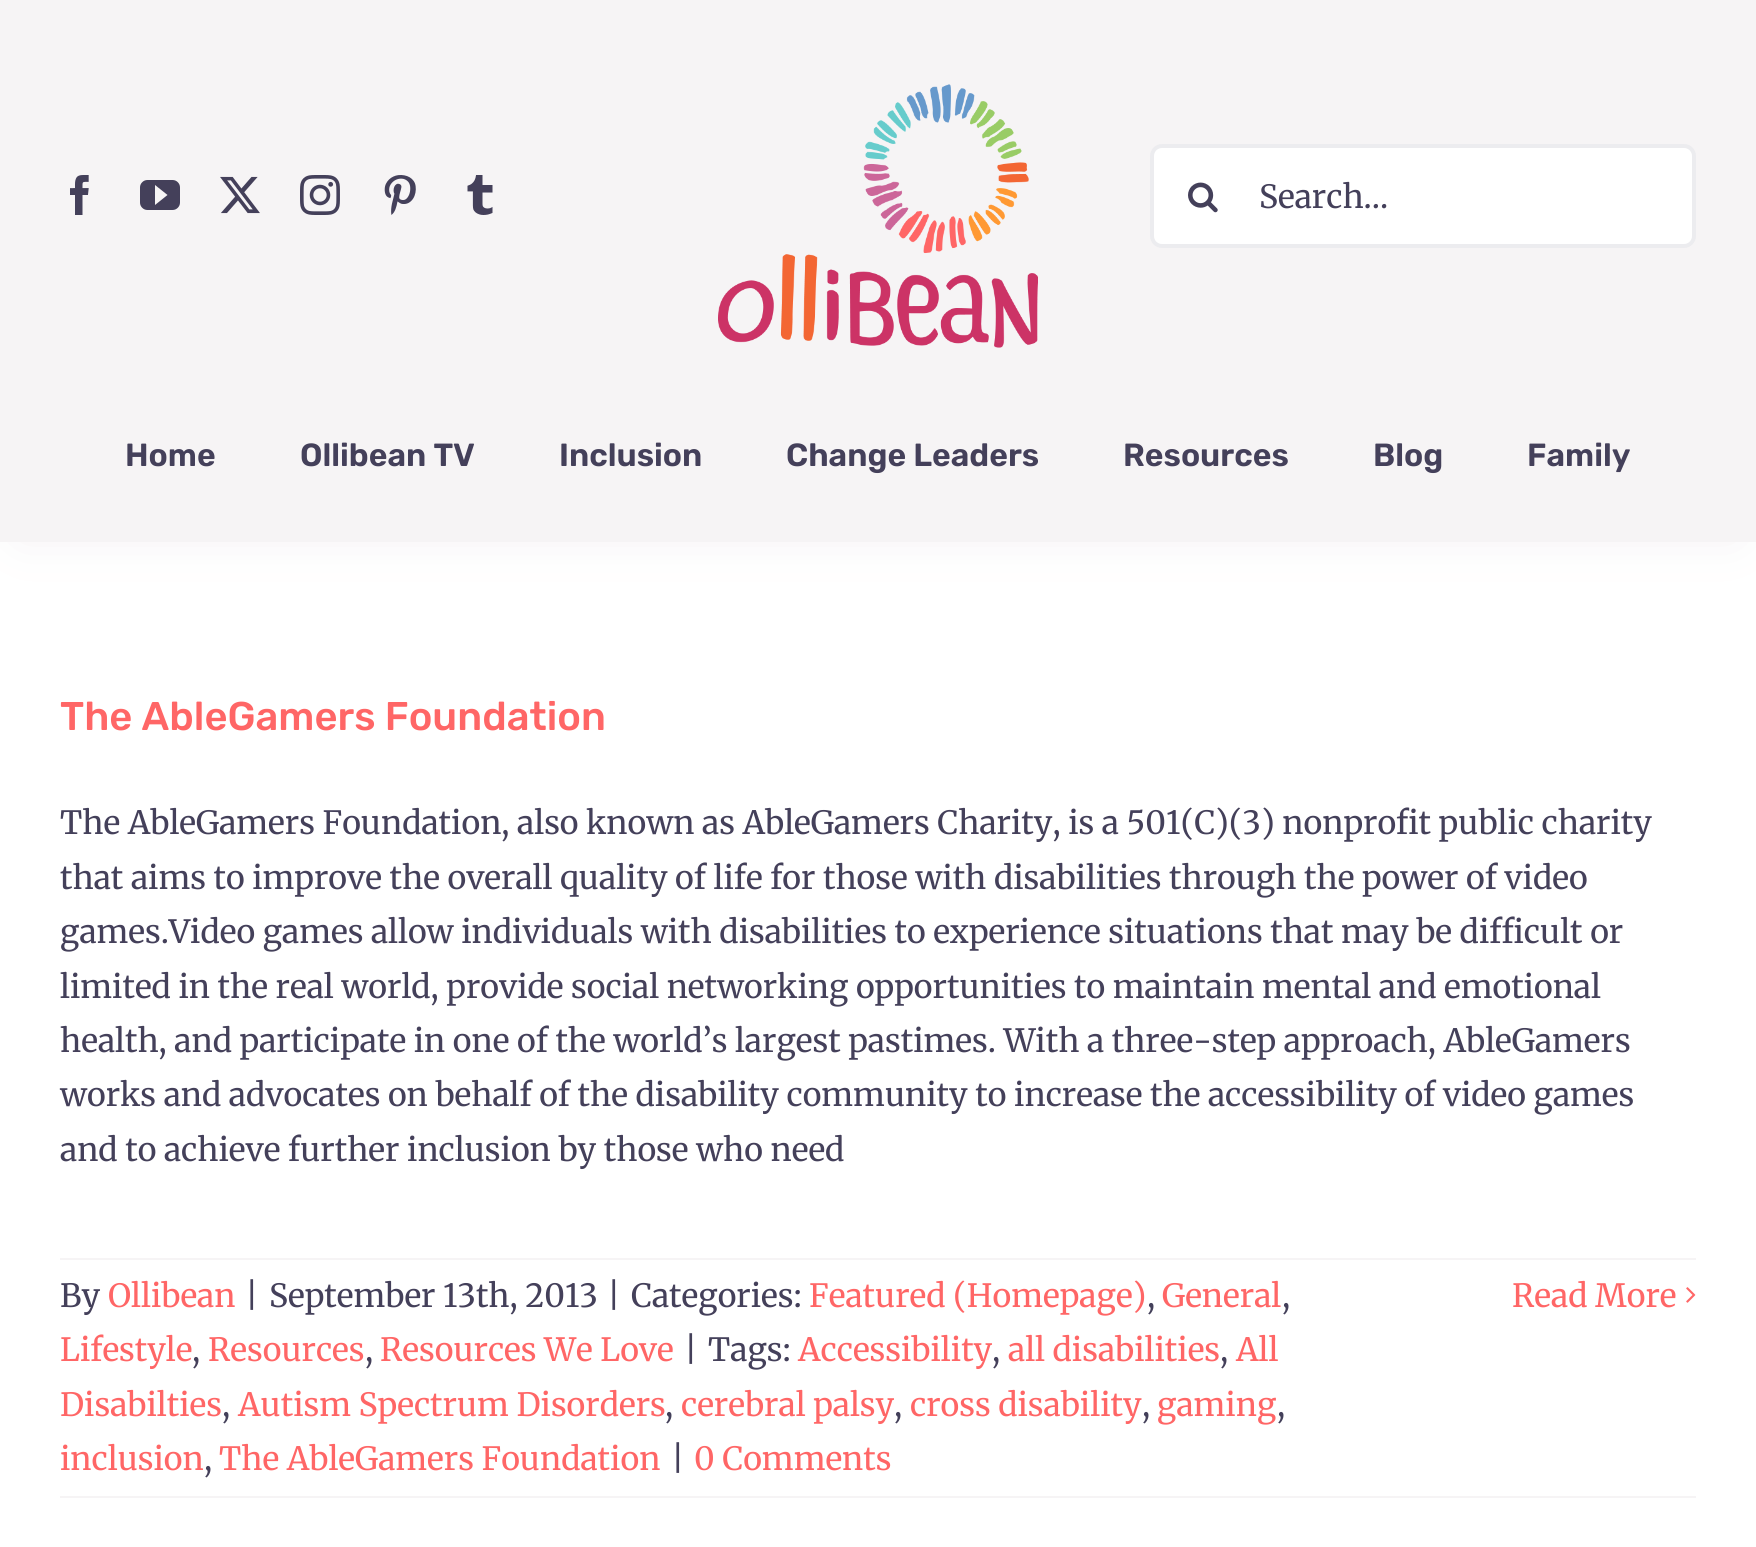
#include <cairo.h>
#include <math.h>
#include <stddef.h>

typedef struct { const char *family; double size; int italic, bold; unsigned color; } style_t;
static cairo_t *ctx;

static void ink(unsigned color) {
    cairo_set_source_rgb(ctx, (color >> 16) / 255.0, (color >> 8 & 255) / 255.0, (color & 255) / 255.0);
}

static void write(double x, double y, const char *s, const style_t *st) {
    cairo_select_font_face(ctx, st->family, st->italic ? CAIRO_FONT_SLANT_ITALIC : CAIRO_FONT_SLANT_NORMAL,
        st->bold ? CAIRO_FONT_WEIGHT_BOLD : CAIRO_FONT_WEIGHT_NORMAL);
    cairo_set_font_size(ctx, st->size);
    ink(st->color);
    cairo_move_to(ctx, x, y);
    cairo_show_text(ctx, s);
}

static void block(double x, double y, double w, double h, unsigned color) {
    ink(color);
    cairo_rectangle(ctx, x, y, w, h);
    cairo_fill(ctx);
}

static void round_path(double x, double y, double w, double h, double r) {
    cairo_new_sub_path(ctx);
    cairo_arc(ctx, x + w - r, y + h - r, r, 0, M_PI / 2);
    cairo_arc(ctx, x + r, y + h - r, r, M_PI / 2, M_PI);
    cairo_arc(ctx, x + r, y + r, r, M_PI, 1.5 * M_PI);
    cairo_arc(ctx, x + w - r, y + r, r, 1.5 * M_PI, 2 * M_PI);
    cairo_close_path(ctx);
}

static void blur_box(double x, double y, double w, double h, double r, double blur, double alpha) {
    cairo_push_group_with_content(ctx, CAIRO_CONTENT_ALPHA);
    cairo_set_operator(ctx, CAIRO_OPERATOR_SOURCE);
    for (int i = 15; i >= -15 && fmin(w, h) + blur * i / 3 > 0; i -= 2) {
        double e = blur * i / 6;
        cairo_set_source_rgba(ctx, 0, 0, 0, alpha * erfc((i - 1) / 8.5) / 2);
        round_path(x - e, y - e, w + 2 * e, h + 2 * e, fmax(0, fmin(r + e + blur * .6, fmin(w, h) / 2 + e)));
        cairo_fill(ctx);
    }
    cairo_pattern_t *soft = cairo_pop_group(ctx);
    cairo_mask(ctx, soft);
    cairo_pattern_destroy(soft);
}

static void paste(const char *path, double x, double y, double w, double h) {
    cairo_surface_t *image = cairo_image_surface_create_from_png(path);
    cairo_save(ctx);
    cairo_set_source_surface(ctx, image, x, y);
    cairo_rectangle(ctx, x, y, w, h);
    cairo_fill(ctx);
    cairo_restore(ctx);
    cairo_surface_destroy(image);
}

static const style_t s1 = {"Merriweather", 32, 0, 0, 0x44405a};
static const style_t s2 = {"Rubik SemiBold", 32, 0, 0, 0x44405a};
static const style_t s3 = {"Rubik Medium", 40, 0, 0, 0xff6666};
static const style_t s4 = {"Merriweather", 32, 0, 0, 0xff6666};

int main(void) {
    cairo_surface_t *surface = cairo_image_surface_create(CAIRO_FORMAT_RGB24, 1756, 1547);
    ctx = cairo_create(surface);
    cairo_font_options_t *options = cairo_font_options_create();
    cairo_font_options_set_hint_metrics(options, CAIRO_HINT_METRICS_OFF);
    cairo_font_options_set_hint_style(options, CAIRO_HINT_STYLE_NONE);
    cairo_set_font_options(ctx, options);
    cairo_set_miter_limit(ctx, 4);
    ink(0xffffff);
    cairo_paint(ctx);
    ink(0xeae1e4);
    blur_box(20, 408, 1716, 126, 0, 26, 0.5);
    block(0, 0, 1756, 542, 0xf6f4f5);
    paste("pic1.png", 70, 175, 19, 40);
    paste("pic2.png", 140, 180, 40, 30);
    paste("pic3.png", 220, 176, 40, 38);
    paste("pic4.png", 300, 175, 40, 40);
    paste("pic5.png", 384, 175, 32, 40);
    paste("pic6.png", 467, 175, 26, 40);
    paste("pic7.png", 718, 84, 320, 264);
    ink(0xffffff);
    round_path(1150, 144, 546, 104, 12);
    cairo_fill(ctx);
    round_path(1152, 146, 542, 100, 10);
    cairo_set_source_rgba(ctx, 0.263, 0.247, 0.353, 0.1);
    cairo_set_line_width(ctx, 4);
    cairo_stroke(ctx);
    paste("pic8.png", 1188, 182, 30, 31);
    write(1259, 208, "Search...", &s1);
    write(125, 466, "Home", &s2);
    write(300, 466, "Ollibean TV", &s2);
    write(559, 466, "Inclusion", &s2);
    write(786, 466, "Change Leaders", &s2);
    write(1123, 466, "Resources", &s2);
    write(1373, 466, "Blog", &s2);
    write(1527, 466, "Family", &s2);
    write(60, 730, "The AbleGamers Foundation", &s3);
    write(60, 834, "The AbleGamers Foundation, also known as AbleGamers Charity, is a 501(C)(3) nonprofit public charity", &s1);
    write(60, 889, "that aims to improve the overall quality of life for those with disabilities through the power of video", &s1);
    write(60, 943, "games.Video games allow individuals with disabilities to experience situations that may be difficult or", &s1);
    write(60, 998, "limited in the real world, provide social networking opportunities to maintain mental and emotional", &s1);
    write(60, 1052, "health, and participate in one of the world’s largest pastimes. With a three-step approach, AbleGamers", &s1);
    write(60, 1106, "works and advocates on behalf of the disability community to increase the accessibility of video games", &s1);
    write(60, 1161, "and to achieve further inclusion by those who need", &s1);
    block(60, 1258, 1636, 2, 0xf6f4f5);
    block(60, 1496, 1636, 2, 0xf6f4f5);
    write(60, 1307, "By", &s1);
    write(108, 1307, "Ollibean", &s4);
    write(245, 1307, "|", &s1);
    write(269, 1307, "September 13th, 2013", &s1);
    write(607, 1307, "|", &s1);
    write(631, 1307, "Categories:", &s1);
    write(809, 1307, "Featured (Homepage)", &s4);
    write(1147, 1307, ",", &s1);
    write(1162, 1307, "General", &s4);
    write(1282, 1307, ",", &s1);
    write(60, 1361, "Lifestyle", &s4);
    write(192, 1361, ",", &s1);
    write(208, 1361, "Resources", &s4);
    write(365, 1361, ",", &s1);
    write(380, 1361, "Resources We Love", &s4);
    write(684, 1361, "|", &s1);
    write(708, 1361, "Tags:", &s1);
    write(798, 1361, "Accessibility", &s4);
    write(992, 1361, ",", &s1);
    write(1008, 1361, "all disabilities", &s4);
    write(1220, 1361, ",", &s1);
    write(1236, 1361, "All", &s4);
    write(60, 1416, "Disabilties", &s4);
    write(222, 1416, ",", &s1);
    write(238, 1416, "Autism Spectrum Disorders", &s4);
    write(665, 1416, ",", &s1);
    write(681, 1416, "cerebral palsy", &s4);
    write(894, 1416, ",", &s1);
    write(910, 1416, "cross disability", &s4);
    write(1142, 1416, ",", &s1);
    write(1157, 1416, "gaming", &s4);
    write(1277, 1416, ",", &s1);
    write(60, 1470, "inclusion", &s4);
    write(204, 1470, ",", &s1);
    write(219, 1470, "The AbleGamers Foundation", &s4);
    write(671, 1470, "|", &s1);
    write(694, 1470, "0 Comments", &s4);
    write(1512, 1307, "Read More", &s4);
    paste("pic9.png", 1686, 1287, 10, 16);
    cairo_surface_write_to_png(surface, "screenshot.png");
    cairo_font_options_destroy(options);
    cairo_destroy(ctx);
    cairo_surface_destroy(surface);
    return 0;
}
